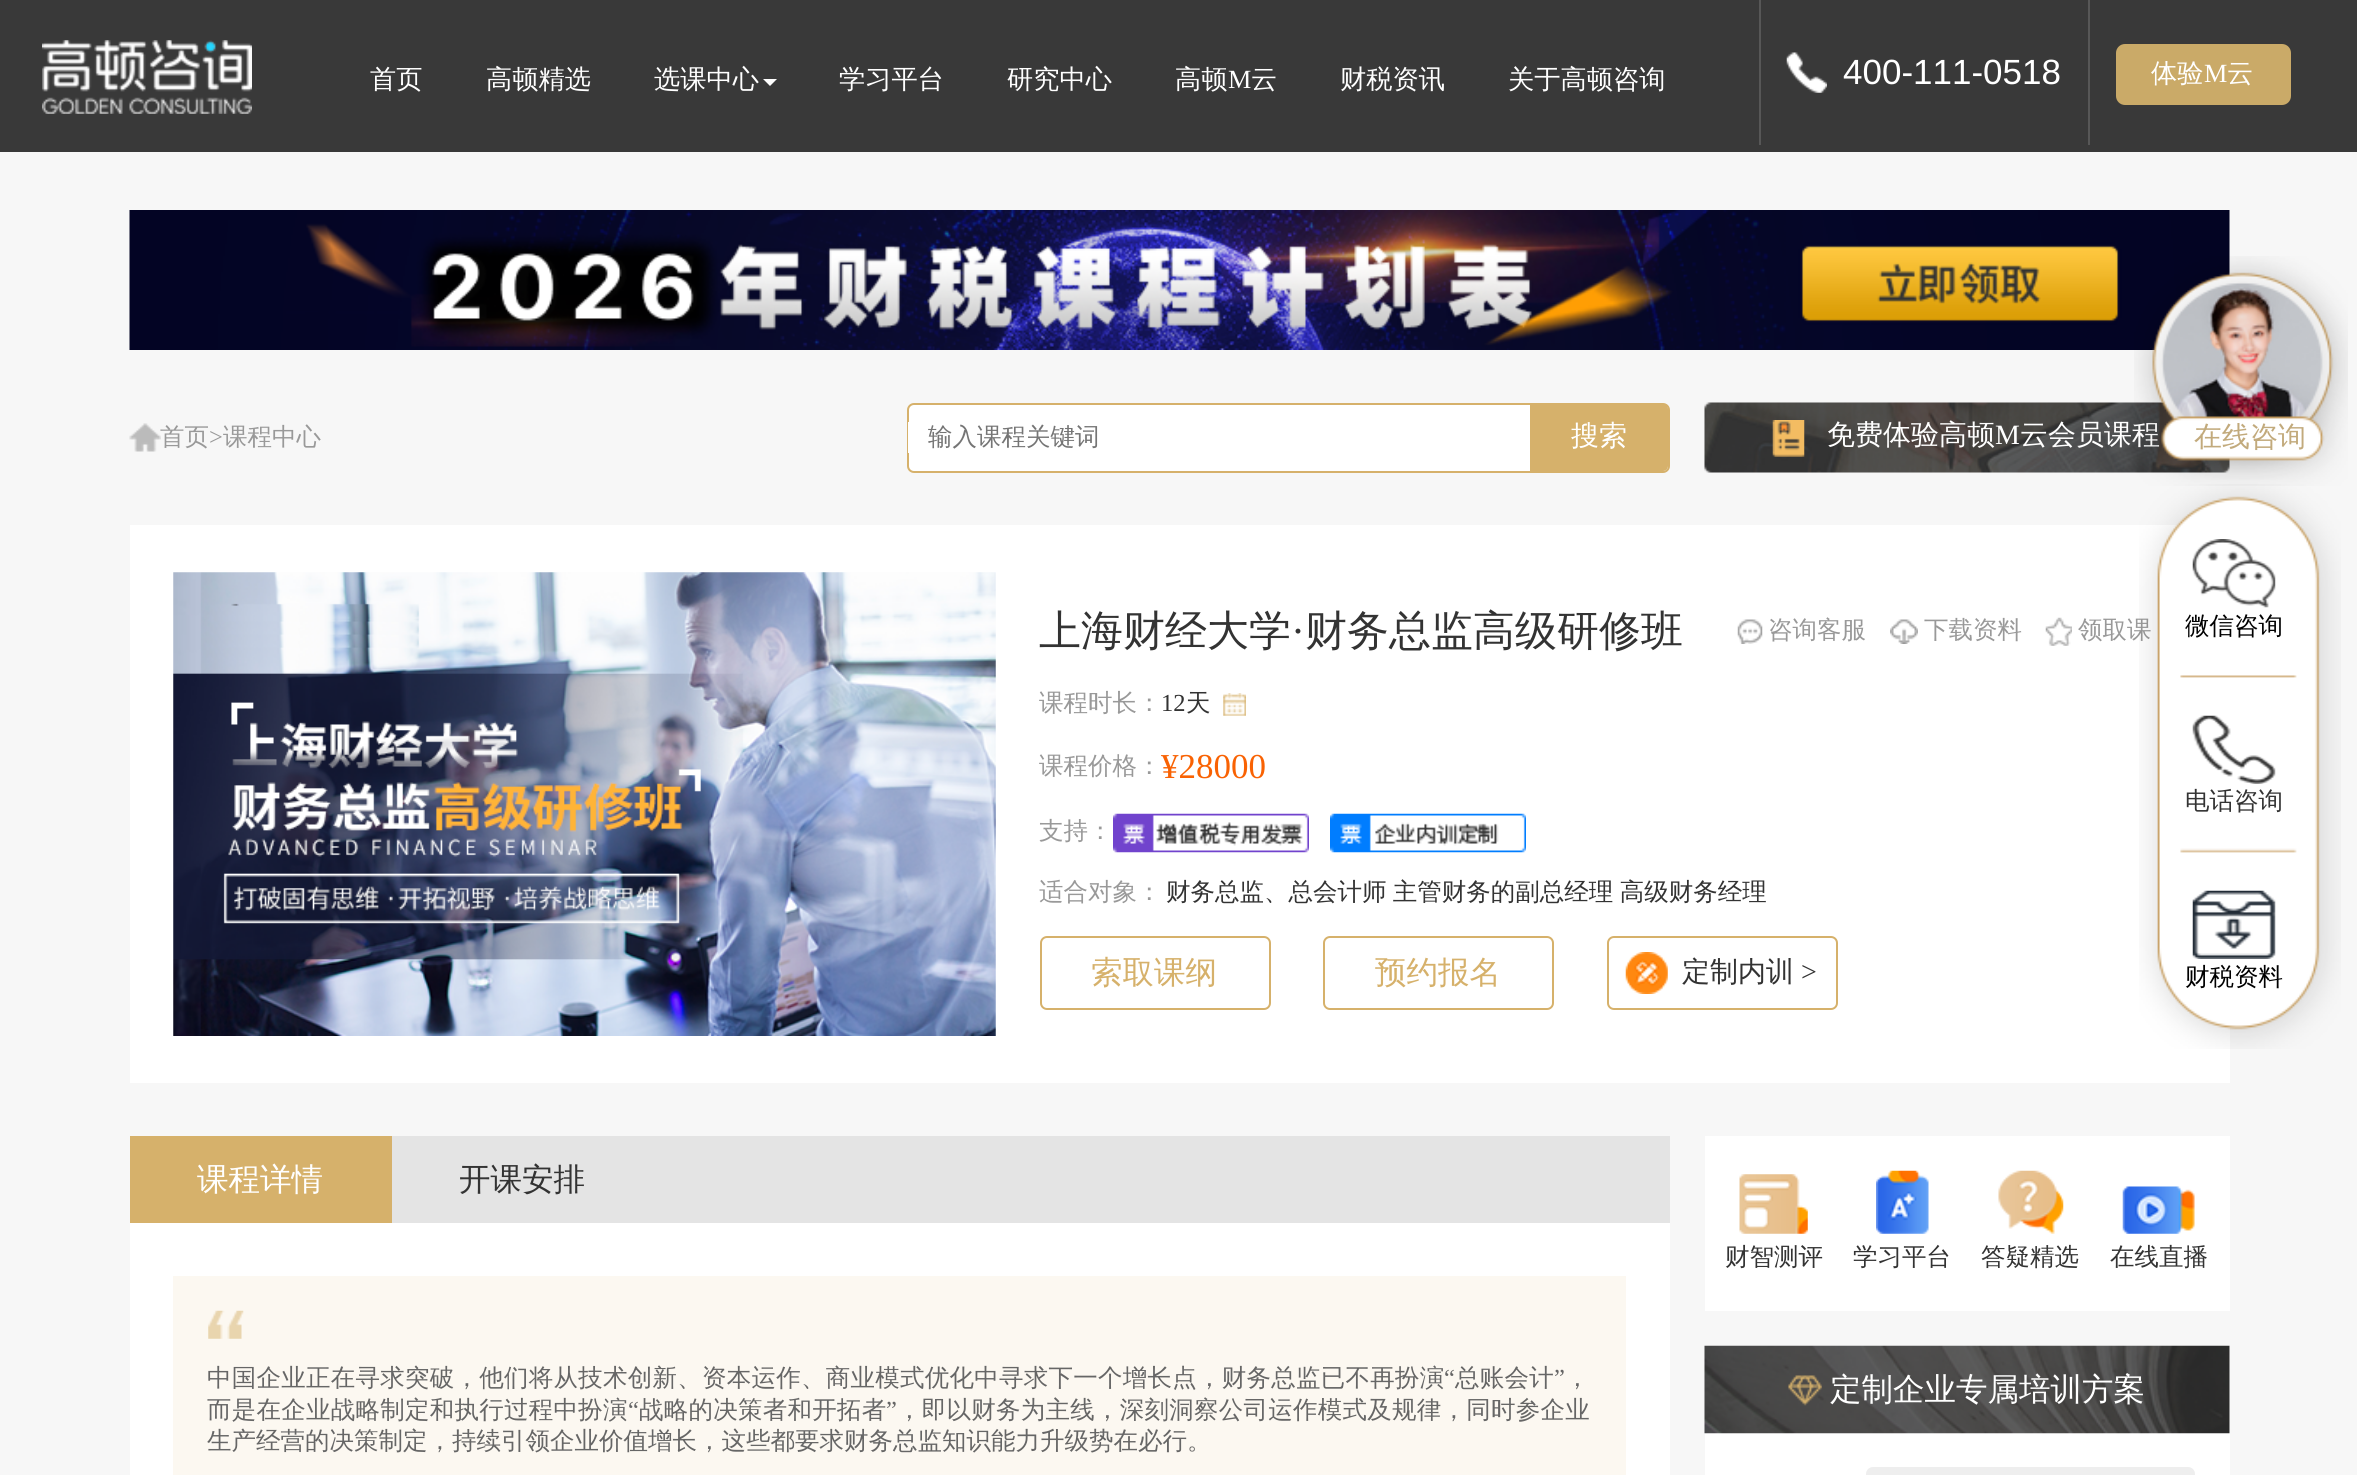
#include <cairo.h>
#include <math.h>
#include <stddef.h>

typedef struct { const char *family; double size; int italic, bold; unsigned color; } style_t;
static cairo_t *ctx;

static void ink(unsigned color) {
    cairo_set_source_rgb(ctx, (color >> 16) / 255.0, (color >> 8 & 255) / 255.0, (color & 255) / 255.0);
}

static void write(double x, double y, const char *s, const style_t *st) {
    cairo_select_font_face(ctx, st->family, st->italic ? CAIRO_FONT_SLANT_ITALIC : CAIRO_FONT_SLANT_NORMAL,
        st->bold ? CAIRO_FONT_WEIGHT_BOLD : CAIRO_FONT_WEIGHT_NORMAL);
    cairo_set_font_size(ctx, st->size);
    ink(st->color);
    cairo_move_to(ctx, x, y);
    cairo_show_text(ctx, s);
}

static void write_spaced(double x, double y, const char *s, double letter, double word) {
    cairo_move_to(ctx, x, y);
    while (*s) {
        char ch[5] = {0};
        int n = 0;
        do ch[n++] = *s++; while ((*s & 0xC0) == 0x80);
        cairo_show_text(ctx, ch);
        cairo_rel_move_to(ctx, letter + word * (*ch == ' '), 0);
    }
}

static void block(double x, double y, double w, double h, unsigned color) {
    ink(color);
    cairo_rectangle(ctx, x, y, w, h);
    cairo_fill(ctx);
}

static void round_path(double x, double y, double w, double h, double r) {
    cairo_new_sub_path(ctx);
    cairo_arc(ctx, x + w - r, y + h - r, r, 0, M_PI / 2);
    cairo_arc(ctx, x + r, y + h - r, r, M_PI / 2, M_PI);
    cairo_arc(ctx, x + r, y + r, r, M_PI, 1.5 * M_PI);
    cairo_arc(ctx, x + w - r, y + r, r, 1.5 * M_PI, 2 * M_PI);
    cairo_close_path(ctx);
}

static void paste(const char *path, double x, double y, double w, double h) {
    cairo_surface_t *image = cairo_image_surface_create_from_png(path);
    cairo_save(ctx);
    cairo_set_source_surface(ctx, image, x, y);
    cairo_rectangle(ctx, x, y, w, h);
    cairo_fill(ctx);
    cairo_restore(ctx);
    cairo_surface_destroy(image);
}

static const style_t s1 = {"WenQuanYi Zen Hei Medium", 26.25, 0, 0, 0xffffff};
static const style_t s2 = {"Liberation Serif", 26.25, 0, 0, 0xffffff};
static const style_t s3 = {"Liberation Sans", 35, 0, 0, 0xffffff};
static const style_t s4 = {"WenQuanYi Zen Hei Medium", 24.5, 0, 0, 0x999999};
static const style_t s5 = {"Liberation Serif", 24.5, 0, 0, 0x999999};
static const style_t s6 = {"WenQuanYi Zen Hei Medium", 24.5, 0, 0, 0x757575};
static const style_t s7 = {"WenQuanYi Zen Hei Medium", 28, 0, 0, 0xffffff};
static const style_t s8 = {"Liberation Serif", 28, 0, 0, 0xffffff};
static const style_t s9 = {"WenQuanYi Zen Hei Medium", 42, 0, 0, 0x333333};
static const style_t s10 = {"Liberation Serif", 42, 0, 0, 0x333333};
static const style_t s11 = {"Liberation Serif", 24.5, 0, 0, 0x333333};
static const style_t s12 = {"WenQuanYi Zen Hei Medium", 24.5, 0, 0, 0x333333};
static const style_t s13 = {"Liberation Serif", 35, 0, 0, 0xf96203};
static const style_t s14 = {"WenQuanYi Zen Hei Medium", 31.5, 0, 0, 0xd6b16b};
static const style_t s15 = {"WenQuanYi Zen Hei Medium", 28, 0, 0, 0x333333};
static const style_t s16 = {"Liberation Serif", 28, 0, 0, 0x333333};
static const style_t s17 = {"WenQuanYi Zen Hei Medium", 31.5, 0, 0, 0xffffff};
static const style_t s18 = {"WenQuanYi Zen Hei Medium", 31.5, 0, 0, 0x333333};
static const style_t s19 = {"WenQuanYi Zen Hei Medium", 24.5, 0, 0, 0x666666};
static const style_t s20 = {"WenQuanYi Zen Hei Medium", 28, 0, 0, 0xc2aa7c};
static const style_t s21 = {"WenQuanYi Zen Hei Medium", 24.5, 0, 0, 0x000000};

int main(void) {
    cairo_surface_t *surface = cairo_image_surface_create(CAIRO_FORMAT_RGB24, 2357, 1475);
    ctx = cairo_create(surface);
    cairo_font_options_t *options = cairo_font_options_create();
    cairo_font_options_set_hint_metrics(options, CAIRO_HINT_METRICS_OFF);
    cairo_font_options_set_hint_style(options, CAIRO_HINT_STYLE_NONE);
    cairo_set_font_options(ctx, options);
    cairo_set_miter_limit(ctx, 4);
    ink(0xf7f7f7);
    cairo_paint(ctx);
    block(0, 0, 2357, 152, 0x393939);
    paste("pic1.png", 42, 40, 210, 74);
    write(370, 88, "首页", &s1);
    write(486, 88, "高顿精选", &s1);
    write(654, 88, "选课中心", &s1);
    cairo_new_path(ctx);
    cairo_move_to(ctx, 763, 79);
    cairo_line_to(ctx, 777, 79);
    cairo_line_to(ctx, 770, 86);
    cairo_close_path(ctx);
    cairo_fill(ctx);
    write(839, 88, "学习平台", &s1);
    write(1007, 88, "研究中心", &s1);
    write(1175, 88, "高顿", &s1);
    write(1228, 88, "M", &s2);
    write(1251, 88, "云", &s1);
    write(1340, 88, "财税资讯", &s1);
    write(1508, 88, "关于高顿咨询", &s1);
    block(2088, 0, 2, 145, 0x575757);
    block(1759, 0, 2, 145, 0x575757);
    paste("pic2.png", 1786, 52, 41, 41);
    write(1843, 84, "400-111-0518", &s3);
    ink(0xcaaa68);
    round_path(2116, 44, 175, 61, 9);
    cairo_fill(ctx);
    write(2151, 82, "体验", &s1);
    write(2204, 82, "M", &s2);
    write(2227, 82, "云", &s1);
    paste("pic3.png", 129, 210, 2101, 140);
    paste("pic4.png", 129, 423, 32, 29);
    write(160, 445, "首页", &s4);
    write(209, 445, ">", &s5);
    write(223, 445, "课程中心", &s4);
    ink(0xffffff);
    round_path(908, 404, 761, 68, 6);
    cairo_fill_preserve(ctx);
    ink(0xd6b16b);
    cairo_stroke(ctx);
    block(908, 422, 1, 31, 0xffffff);
    write(928, 445, "输入课程关键词", &s6);
    ink(0xd6b16b);
    cairo_new_path(ctx);
    cairo_move_to(ctx, 1530, 404);
    cairo_line_to(ctx, 1663, 404);
    cairo_curve_to(ctx, 1666, 404, 1668, 406, 1668, 409);
    cairo_line_to(ctx, 1668, 466);
    cairo_curve_to(ctx, 1668, 469, 1666, 471, 1663, 471);
    cairo_line_to(ctx, 1530, 471);
    cairo_close_path(ctx);
    cairo_fill(ctx);
    write(1571, 445, "搜索", &s7);
    paste("pic5.png", 1704, 402, 526, 71);
    paste("pic6.png", 1772, 420, 33, 37);
    write(1827, 444, "免费体验高顿", &s7);
    write(1995, 444, "M", &s8);
    write(2020, 444, "云会员课程", &s7);
    block(130, 525, 2100, 558, 0xffffff);
    paste("pic7.png", 173, 572, 823, 464);
    write(1039, 645, "上海财经大学", &s9);
    write(1291, 645, "·", &s10);
    write(1305, 645, "财务总监高级研修班", &s9);
    paste("pic8.png", 1737, 619, 26, 25);
    write(1768, 638, "咨询客服", &s4);
    paste("pic9.png", 1890, 619, 28, 25);
    write(1924, 638, "下载资料", &s4);
    paste("pic10.png", 2045, 617, 27, 29);
    write(2078, 638, "领取课", &s4);
    write(1039, 711, "课程时长：", &s4);
    write(1161, 711, "12", &s11);
    write(1186, 711, "天", &s12);
    paste("pic11.png", 1223, 693, 23, 23);
    write(1039, 774, "课程价格：", &s4);
    write(1161, 778, "¥28000", &s13);
    write(1039, 839, "支持：", &s4);
    paste("pic12.png", 1113, 813, 196, 40);
    paste("pic13.png", 1330, 813, 196, 40);
    write(1039, 900, "适合对象：", &s4);
    ink(0x333333);
    write_spaced(1166, 900, "财务总监、总会计师 主管财务的副总经理 高级财务经理", 0, -1);
    round_path(1041, 937, 229, 72, 6);
    ink(0xd6b16b);
    cairo_stroke(ctx);
    write(1091, 983, "索取课纲", &s14);
    round_path(1324, 937, 229, 72, 6);
    cairo_stroke(ctx);
    write(1375, 983, "预约报名", &s14);
    round_path(1608, 937, 229, 72, 6);
    cairo_stroke(ctx);
    paste("pic14.png", 1625, 952, 43, 42);
    write(1682, 981, "定制内训", &s15);
    write(1801, 981, ">", &s16);
    block(392, 1136, 1278, 87, 0xe4e4e4);
    block(130, 1136, 262, 87, 0xd6b16b);
    write(197, 1190, "课程详情", &s17);
    write(459, 1190, "开课安排", &s18);
    block(130, 1223, 1540, 252, 0xffffff);
    block(173, 1276, 1453, 199, 0xfcf8f1);
    paste("pic15.png", 208, 1310, 36, 29);
    cairo_set_font_size(ctx, 24.5);
    ink(0x666666);
    write_spaced(207, 1386, "中国企业正在寻求突破，他们将从技术创新、资本运作、商业模式优化中寻求下一个增长点，财务总监已不再扮演", 0.25, 0);
    cairo_select_font_face(ctx, "Liberation Serif", CAIRO_FONT_SLANT_NORMAL, CAIRO_FONT_WEIGHT_NORMAL);
    write_spaced(1444, 1386, "“", 0.25, 0);
    cairo_select_font_face(ctx, "WenQuanYi Zen Hei Medium", CAIRO_FONT_SLANT_NORMAL, CAIRO_FONT_WEIGHT_NORMAL);
    write_spaced(1455, 1386, "总账会计", 0.25, 0);
    cairo_select_font_face(ctx, "Liberation Serif", CAIRO_FONT_SLANT_NORMAL, CAIRO_FONT_WEIGHT_NORMAL);
    write_spaced(1554, 1386, "”", 0.25, 0);
    cairo_select_font_face(ctx, "WenQuanYi Zen Hei Medium", CAIRO_FONT_SLANT_NORMAL, CAIRO_FONT_WEIGHT_NORMAL);
    write_spaced(1565, 1386, "，", 0.25, 0);
    write_spaced(207, 1418, "而是在企业战略制定和执行过程中扮演", 0.25, 0);
    cairo_select_font_face(ctx, "Liberation Serif", CAIRO_FONT_SLANT_NORMAL, CAIRO_FONT_WEIGHT_NORMAL);
    write_spaced(628, 1418, "“", 0.25, 0);
    cairo_select_font_face(ctx, "WenQuanYi Zen Hei Medium", CAIRO_FONT_SLANT_NORMAL, CAIRO_FONT_WEIGHT_NORMAL);
    write_spaced(639, 1418, "战略的决策者和开拓者", 0.25, 0);
    cairo_select_font_face(ctx, "Liberation Serif", CAIRO_FONT_SLANT_NORMAL, CAIRO_FONT_WEIGHT_NORMAL);
    write_spaced(886, 1418, "”", 0.25, 0);
    cairo_select_font_face(ctx, "WenQuanYi Zen Hei Medium", CAIRO_FONT_SLANT_NORMAL, CAIRO_FONT_WEIGHT_NORMAL);
    write_spaced(897, 1418, "，即以财务为主线，深刻洞察公司运作模式及规律，同时参企业", 0.25, 0);
    write(207, 1449, "生产经营的决策制定，持续引领企业价值增长，这些都要求财务总监知识能力升级势在必行。", &s19);
    block(1705, 1136, 525, 175, 0xffffff);
    paste("pic16.png", 1739, 1174, 69, 60);
    write(1725, 1265, "财智测评", &s12);
    paste("pic17.png", 1876, 1170, 53, 64);
    write(1853, 1265, "学习平台", &s12);
    paste("pic18.png", 1998, 1170, 66, 64);
    write(1981, 1265, "答疑精选", &s12);
    paste("pic19.png", 2122, 1186, 73, 48);
    write(2110, 1265, "在线直播", &s12);
    block(1705, 1346, 525, 129, 0xffffff);
    paste("pic20.png", 1704, 1345, 526, 89);
    paste("pic21.png", 1788, 1375, 34, 31);
    write(1830, 1400, "定制企业专属培训方案", &s17);
    ink(0xeeeeee);
    round_path(1866, 1467, 329, 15, 7);
    cairo_fill(ctx);
    paste("pic23.png", 2139, 484, 202, 565);
    paste("pic22.png", 2134, 256, 214, 230);
    write(2194, 446, "在线咨询", &s20);
    paste("pic24.png", 2192, 539, 84, 69);
    write(2185, 634, "微信咨询", &s21);
    paste("pic25.png", 2192, 715, 84, 69);
    write(2185, 809, "电话咨询", &s12);
    paste("pic26.png", 2192, 890, 84, 69);
    write(2185, 985, "财税资料", &s21);
    cairo_surface_write_to_png(surface, "screenshot.png");
    cairo_font_options_destroy(options);
    cairo_destroy(ctx);
    cairo_surface_destroy(surface);
    return 0;
}
